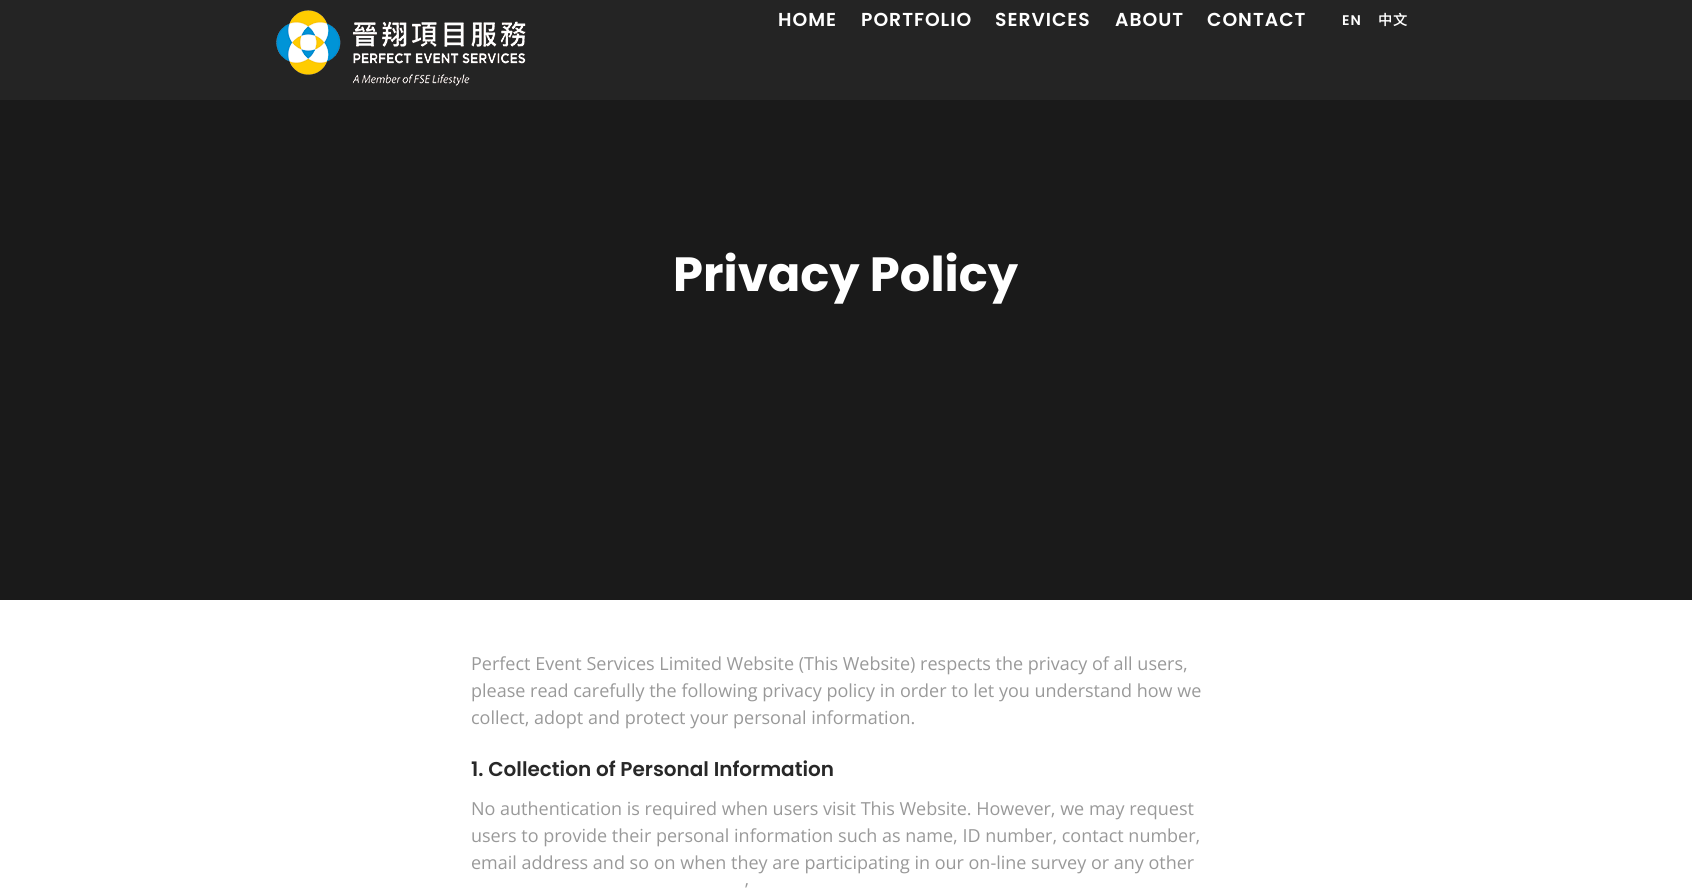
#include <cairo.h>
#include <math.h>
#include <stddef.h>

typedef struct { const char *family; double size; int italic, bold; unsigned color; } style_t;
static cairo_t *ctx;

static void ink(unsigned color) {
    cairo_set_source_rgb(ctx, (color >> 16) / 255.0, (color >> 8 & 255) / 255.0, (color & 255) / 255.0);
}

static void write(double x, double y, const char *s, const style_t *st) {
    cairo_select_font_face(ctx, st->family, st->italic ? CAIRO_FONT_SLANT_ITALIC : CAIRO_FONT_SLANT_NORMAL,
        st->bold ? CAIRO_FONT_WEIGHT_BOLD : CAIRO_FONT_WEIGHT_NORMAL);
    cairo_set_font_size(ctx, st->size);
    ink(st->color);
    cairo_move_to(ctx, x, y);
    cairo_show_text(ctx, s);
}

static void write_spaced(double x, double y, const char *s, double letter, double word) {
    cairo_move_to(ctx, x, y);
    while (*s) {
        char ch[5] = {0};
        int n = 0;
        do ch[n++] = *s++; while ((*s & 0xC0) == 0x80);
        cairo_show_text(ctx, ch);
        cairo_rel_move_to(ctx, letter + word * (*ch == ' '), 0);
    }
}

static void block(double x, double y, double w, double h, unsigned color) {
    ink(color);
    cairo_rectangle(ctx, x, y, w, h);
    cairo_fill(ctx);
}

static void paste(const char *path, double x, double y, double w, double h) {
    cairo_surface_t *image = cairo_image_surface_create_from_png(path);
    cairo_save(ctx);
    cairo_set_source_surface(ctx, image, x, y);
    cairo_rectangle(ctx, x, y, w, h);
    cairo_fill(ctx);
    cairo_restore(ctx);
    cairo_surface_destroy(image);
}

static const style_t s1 = {"Poppins", 48, 0, 1, 0xffffff};
static const style_t s2 = {"Open Sans", 18, 0, 0, 0x999999};
static const style_t s3 = {"Poppins SemiBold", 20, 0, 0, 0x282828};

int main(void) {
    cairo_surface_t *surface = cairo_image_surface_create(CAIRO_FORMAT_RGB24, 1692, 889);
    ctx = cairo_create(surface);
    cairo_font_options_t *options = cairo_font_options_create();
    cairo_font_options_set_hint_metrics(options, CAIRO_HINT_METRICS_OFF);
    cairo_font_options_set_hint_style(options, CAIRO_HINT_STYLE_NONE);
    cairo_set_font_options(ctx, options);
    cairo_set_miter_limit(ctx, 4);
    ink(0xffffff);
    cairo_paint(ctx);
    block(0, 0, 1692, 100, 0x242424);
    paste("pic1.png", 276, 10, 250, 76);
    cairo_select_font_face(ctx, "Poppins SemiBold", CAIRO_FONT_SLANT_NORMAL, CAIRO_FONT_WEIGHT_NORMAL);
    cairo_set_font_size(ctx, 18.75);
    ink(0xffffff);
    write_spaced(778, 26, "HOME", 1, 0);
    write_spaced(861, 26, "PORTFOLIO", 1, 0);
    write_spaced(995, 26, "SERVICES", 1, 0);
    write_spaced(1115, 26, "ABOUT", 1, 0);
    write_spaced(1207, 26, "CONTACT", 1, 0);
    cairo_set_font_size(ctx, 14);
    write_spaced(1342, 25, "EN", 1, 0);
    cairo_select_font_face(ctx, "Noto Sans CJK HK", CAIRO_FONT_SLANT_NORMAL, CAIRO_FONT_WEIGHT_BOLD);
    write_spaced(1378, 25, "中文", 1, 0);
    block(0, 100, 1692, 500, 0x1a1a1a);
    write(673, 291, "Privacy Policy", &s1);
    write(471, 670, "Perfect Event Services Limited Website (This Website) respects the privacy of all users,", &s2);
    write(471, 697, "please read carefully the following privacy policy in order to let you understand how we", &s2);
    write(471, 724, "collect, adopt and protect your personal information.", &s2);
    write(471, 776, "1. Collection of Personal Information", &s3);
    write(471, 815, "No authentication is required when users visit This Website. However, we may request", &s2);
    write(471, 842, "users to provide their personal information such as name, ID number, contact number,", &s2);
    write(471, 869, "email address and so on when they are participating in our on-line survey or any other", &s2);
    write(745, 896, "’", &s2);
    cairo_surface_write_to_png(surface, "screenshot.png");
    cairo_font_options_destroy(options);
    cairo_destroy(ctx);
    cairo_surface_destroy(surface);
    return 0;
}
